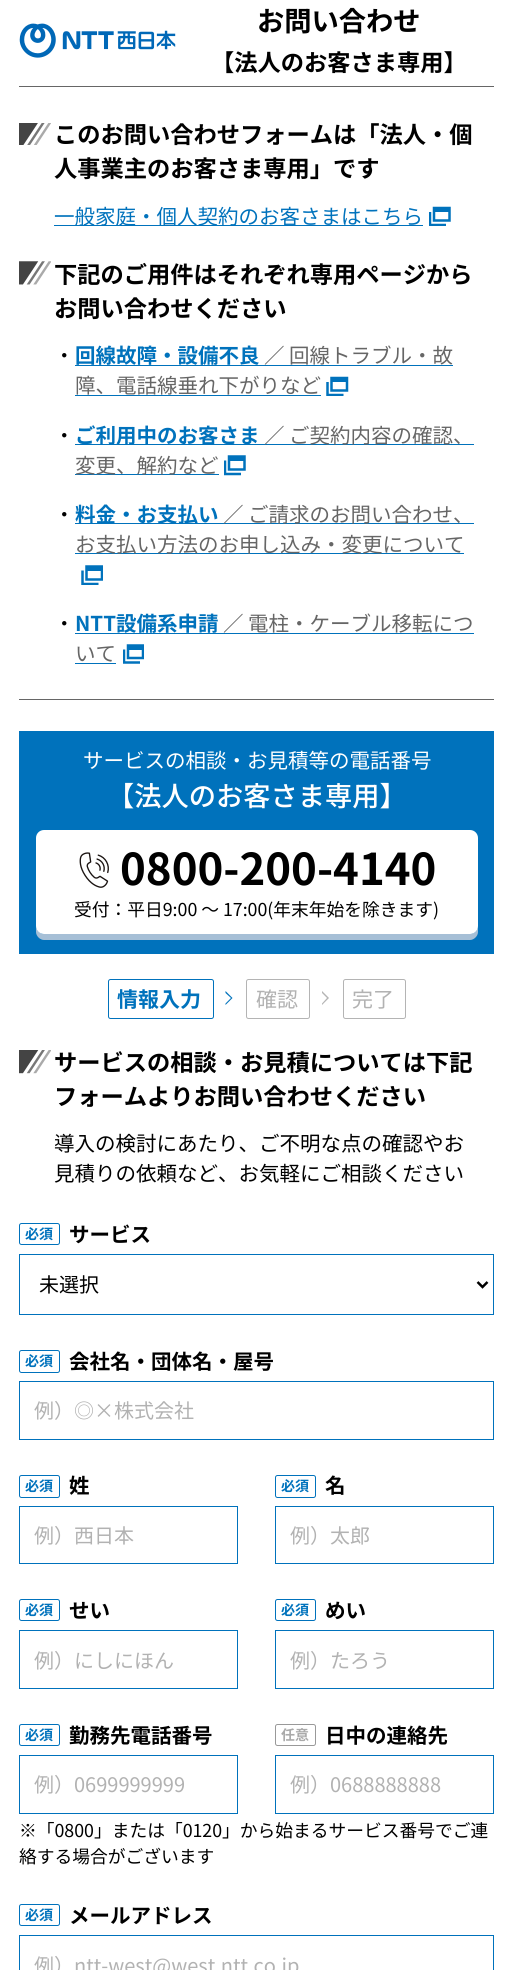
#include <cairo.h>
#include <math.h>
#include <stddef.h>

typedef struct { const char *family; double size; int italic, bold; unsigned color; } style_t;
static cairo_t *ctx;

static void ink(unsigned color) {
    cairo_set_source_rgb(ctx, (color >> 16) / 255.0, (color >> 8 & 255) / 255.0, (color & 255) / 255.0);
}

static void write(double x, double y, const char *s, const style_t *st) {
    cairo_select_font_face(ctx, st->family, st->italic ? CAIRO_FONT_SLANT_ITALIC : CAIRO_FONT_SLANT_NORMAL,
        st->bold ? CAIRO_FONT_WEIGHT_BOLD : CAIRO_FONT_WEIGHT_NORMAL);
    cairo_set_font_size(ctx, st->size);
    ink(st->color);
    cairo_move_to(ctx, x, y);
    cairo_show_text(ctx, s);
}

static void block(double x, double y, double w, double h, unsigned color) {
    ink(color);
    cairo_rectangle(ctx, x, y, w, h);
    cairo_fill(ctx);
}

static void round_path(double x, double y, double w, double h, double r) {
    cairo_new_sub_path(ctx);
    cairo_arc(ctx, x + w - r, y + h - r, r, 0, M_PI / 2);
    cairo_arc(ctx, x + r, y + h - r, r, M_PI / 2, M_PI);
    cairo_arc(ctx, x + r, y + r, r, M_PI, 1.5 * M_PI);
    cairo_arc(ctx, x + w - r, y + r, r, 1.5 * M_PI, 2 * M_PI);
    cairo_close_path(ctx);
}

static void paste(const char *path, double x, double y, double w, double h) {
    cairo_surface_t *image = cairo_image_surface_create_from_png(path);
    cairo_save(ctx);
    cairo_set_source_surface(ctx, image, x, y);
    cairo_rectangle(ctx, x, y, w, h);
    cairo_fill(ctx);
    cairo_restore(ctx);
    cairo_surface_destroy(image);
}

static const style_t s1 = {"Noto Sans JP", 27.25, 0, 1, 0x000000};
static const style_t s2 = {"Noto Sans JP", 23.25, 0, 1, 0x000000};
static const style_t s3 = {"Noto Sans JP", 20.5, 0, 0, 0x0072bc};
static const style_t s4 = {"Noto Sans JP", 20.5, 0, 0, 0x000000};
static const style_t s5 = {"Noto Sans JP", 20.5, 0, 1, 0x0072bc};
static const style_t s6 = {"Noto Sans JP", 20.5, 0, 0, 0x666666};
static const style_t s7 = {"Noto Sans JP", 20.5, 0, 0, 0xffffff};
static const style_t s8 = {"Noto Sans JP Medium", 27.25, 0, 0, 0xffffff};
static const style_t s9 = {"Noto Sans JP", 43.75, 0, 1, 0x000000};
static const style_t s10 = {"Noto Sans JP", 17.75, 0, 0, 0x000000};
static const style_t s11 = {"Noto Sans JP", 21, 0, 1, 0x0072bc};
static const style_t s12 = {"Noto Sans JP", 21, 0, 0, 0xb2b2b2};
static const style_t s13 = {"Noto Sans JP", 14, 0, 1, 0x0072bc};
static const style_t s14 = {"Noto Sans JP", 20.5, 0, 1, 0x000000};
static const style_t s15 = {"Noto Sans JP", 20, 0, 0, 0x000000};
static const style_t s16 = {"Noto Sans JP", 20, 0, 0, 0xb2b2b2};
static const style_t s17 = {"Noto Sans JP", 14, 0, 1, 0xaaaaaa};

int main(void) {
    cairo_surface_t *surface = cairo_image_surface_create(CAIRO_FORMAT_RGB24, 512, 1970);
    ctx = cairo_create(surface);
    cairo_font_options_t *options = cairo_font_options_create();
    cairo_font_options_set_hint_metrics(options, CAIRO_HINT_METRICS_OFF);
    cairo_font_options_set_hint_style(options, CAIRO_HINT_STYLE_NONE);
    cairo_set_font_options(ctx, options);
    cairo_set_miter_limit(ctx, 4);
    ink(0xffffff);
    cairo_paint(ctx);
    block(19, 86, 475, 1, 0x666666);
    paste("pic1.png", 19, 23, 157, 35);
    write(257, 31, "お問い合わせ", &s1);
    write(211, 71, "【法人のお客さま専用】", &s2);
    block(19, 699, 475, 1, 0x666666);
    paste("pic2.png", 19, 123, 32, 22);
    write(54, 143, "このお問い合わせフォームは「法人・個", &s2);
    write(54, 177, "人事業主のお客さま専用」です", &s2);
    block(54, 225, 369, 1, 0x0072bc);
    write(54, 224, "一般家庭・個人契約のお客さまはこちら", &s3);
    cairo_new_path(ctx);
    cairo_move_to(ctx, 449.5, 208);
    cairo_line_to(ctx, 449.5, 220.5);
    cairo_line_to(ctx, 434, 220.5);
    cairo_line_to(ctx, 434, 208);
    cairo_close_path(ctx);
    cairo_set_line_width(ctx, 2.5);
    cairo_stroke(ctx);
    cairo_save(ctx);
    cairo_rectangle(ctx, 429, 206, 22, 20);
    cairo_clip(ctx);
    cairo_new_path(ctx);
    cairo_move_to(ctx, 430, 212);
    cairo_line_to(ctx, 430, 225);
    cairo_line_to(ctx, 446, 225);
    cairo_stroke(ctx);
    cairo_restore(ctx);
    block(435, 209, 14, 3, 0x0072bc);
    paste("pic3.png", 19, 261, 32, 24);
    write(54, 283, "下記のご用件はそれぞれ専用ページから", &s2);
    write(54, 317, "お問い合わせください", &s2);
    write(54, 363, "・", &s4);
    write(75, 363, "回線故障・設備不良", &s5);
    block(75, 365, 378, 1, 0x0072bc);
    write(264, 363, "／ 回線トラブル・故", &s6);
    write(75, 393, "障、電話線垂れ下がりなど", &s6);
    block(75, 395, 246, 1, 0x0072bc);
    cairo_new_path(ctx);
    cairo_move_to(ctx, 347, 378);
    cairo_line_to(ctx, 347, 390.5);
    cairo_line_to(ctx, 331.5, 390.5);
    cairo_line_to(ctx, 331.5, 378);
    cairo_close_path(ctx);
    cairo_stroke(ctx);
    cairo_save(ctx);
    cairo_rectangle(ctx, 326, 376, 23, 20);
    cairo_clip(ctx);
    cairo_new_path(ctx);
    cairo_move_to(ctx, 327.5, 382);
    cairo_line_to(ctx, 327.5, 395);
    cairo_line_to(ctx, 343.5, 395);
    cairo_stroke(ctx);
    cairo_restore(ctx);
    block(332, 379, 14, 3, 0x0072bc);
    write(54, 443, "・", &s4);
    block(75, 444, 399, 1, 0x0072bc);
    write(75, 443, "ご利用中のお客さま", &s5);
    write(264, 443, "／ ご契約内容の確認、", &s6);
    block(75, 474, 144, 1, 0x0072bc);
    write(75, 473, "変更、解約など", &s6);
    cairo_new_path(ctx);
    cairo_move_to(ctx, 244.5, 456.5);
    cairo_line_to(ctx, 244.5, 469.5);
    cairo_line_to(ctx, 229, 469.5);
    cairo_line_to(ctx, 229, 456.5);
    cairo_close_path(ctx);
    ink(0x0072bc);
    cairo_stroke(ctx);
    cairo_save(ctx);
    cairo_rectangle(ctx, 224, 455, 22, 21);
    cairo_clip(ctx);
    cairo_new_path(ctx);
    cairo_move_to(ctx, 225, 460.5);
    cairo_line_to(ctx, 225, 474);
    cairo_line_to(ctx, 241, 474);
    cairo_stroke(ctx);
    cairo_restore(ctx);
    block(230, 457, 14, 4, 0x0072bc);
    write(54, 522, "・", &s4);
    block(75, 523, 399, 1, 0x0072bc);
    write(75, 522, "料金・お支払い", &s5);
    write(223, 522, "／ ご請求のお問い合わせ、", &s6);
    block(75, 553, 389, 1, 0x0072bc);
    write(75, 552, "お支払い方法のお申し込み・変更について", &s6);
    cairo_save(ctx);
    cairo_rectangle(ctx, 81, 565, 22, 20);
    cairo_clip(ctx);
    cairo_new_path(ctx);
    cairo_move_to(ctx, 102, 566.5);
    cairo_line_to(ctx, 102, 579.5);
    cairo_line_to(ctx, 86.5, 579.5);
    cairo_line_to(ctx, 86.5, 566.5);
    cairo_close_path(ctx);
    cairo_move_to(ctx, 82.5, 570.5);
    cairo_line_to(ctx, 82.5, 584);
    cairo_line_to(ctx, 98.5, 584);
    ink(0x0072bc);
    cairo_stroke(ctx);
    cairo_restore(ctx);
    block(87, 567, 14, 4, 0x0072bc);
    write(54, 631, "・", &s4);
    write(75, 631, "NTT設備系申請", &s5);
    block(75, 633, 399, 1, 0x0072bc);
    write(223, 631, "／ 電柱・ケーブル移転につ", &s6);
    write(75, 661, "いて", &s6);
    block(75, 663, 41, 1, 0x0072bc);
    cairo_save(ctx);
    cairo_rectangle(ctx, 123, 644, 21, 20);
    cairo_clip(ctx);
    cairo_new_path(ctx);
    cairo_move_to(ctx, 143, 645.5);
    cairo_line_to(ctx, 143, 658);
    cairo_line_to(ctx, 128, 658);
    cairo_line_to(ctx, 128, 645.5);
    cairo_close_path(ctx);
    cairo_move_to(ctx, 124, 649.5);
    cairo_line_to(ctx, 124, 662.5);
    cairo_line_to(ctx, 140, 662.5);
    cairo_stroke(ctx);
    cairo_restore(ctx);
    block(129, 646, 14, 4, 0x0072bc);
    block(19, 731, 475, 223, 0x0072bc);
    write(83, 768, "サービスの相談・お見積等の電話番号", &s7);
    write(107, 806, "【法人のお客さま専用】", &s8);
    ink(0xa6bfd6);
    cairo_new_path(ctx);
    cairo_move_to(ctx, 36, 842);
    cairo_line_to(ctx, 36, 932);
    cairo_curve_to(ctx, 36, 936, 40, 940, 44, 940);
    cairo_line_to(ctx, 470, 940);
    cairo_curve_to(ctx, 474, 940, 478, 936, 478, 932);
    cairo_line_to(ctx, 478, 844);
    cairo_line_to(ctx, 478, 841);
    cairo_line_to(ctx, 478, 926);
    cairo_curve_to(ctx, 478, 930, 474, 934, 470, 934);
    cairo_line_to(ctx, 44, 934);
    cairo_curve_to(ctx, 40, 934, 36, 930, 36, 926);
    cairo_close_path(ctx);
    cairo_fill(ctx);
    ink(0xffffff);
    round_path(36, 830, 442, 104, 8);
    cairo_fill(ctx);
    paste("pic4.png", 79, 852, 30, 36);
    write(120, 885, "0800-200-4140", &s9);
    write(74, 916, "受付：平日9:00 ～ 17:00(年末年始を除きます)", &s10);
    round_path(108.5, 979.5, 105, 39, 2);
    ink(0x0072bc);
    cairo_set_line_width(ctx, 1);
    cairo_stroke(ctx);
    write(117, 1007, "情報入力", &s11);
    cairo_new_path(ctx);
    cairo_move_to(ctx, 225.5, 991);
    cairo_line_to(ctx, 232.5, 998);
    cairo_line_to(ctx, 231, 998);
    cairo_line_to(ctx, 225.5, 993);
    cairo_close_path(ctx);
    cairo_move_to(ctx, 232.5, 998);
    cairo_line_to(ctx, 225.5, 1005);
    cairo_line_to(ctx, 225.5, 1003.5);
    cairo_line_to(ctx, 231, 998);
    cairo_close_path(ctx);
    cairo_fill(ctx);
    round_path(246.5, 979.5, 63, 39, 2);
    ink(0xb4b4b4);
    cairo_stroke(ctx);
    write(256, 1007, "確認", &s12);
    ink(0xb4b4b4);
    cairo_new_path(ctx);
    cairo_move_to(ctx, 322, 991);
    cairo_line_to(ctx, 329, 998);
    cairo_line_to(ctx, 327, 998);
    cairo_line_to(ctx, 322, 993);
    cairo_close_path(ctx);
    cairo_move_to(ctx, 329, 998);
    cairo_line_to(ctx, 322, 1005);
    cairo_line_to(ctx, 322, 1003.5);
    cairo_line_to(ctx, 327, 998);
    cairo_close_path(ctx);
    cairo_fill(ctx);
    round_path(343.5, 979.5, 62, 39, 2);
    cairo_stroke(ctx);
    write(352, 1007, "完了", &s12);
    paste("pic5.png", 19, 1050, 32, 24);
    write(54, 1071, "サービスの相談・お見積については下記", &s2);
    write(54, 1105, "フォームよりお問い合わせください", &s2);
    write(54, 1151, "導入の検討にあたり、ご不明な点の確認やお", &s4);
    write(54, 1181, "見積りの依頼など、お気軽にご相談ください", &s4);
    round_path(19.5, 1223.5, 40, 21, 2);
    ink(0x0072bc);
    cairo_stroke(ctx);
    write(25, 1239, "必須", &s13);
    write(69, 1242, "サービス", &s14);
    cairo_rectangle(ctx, 19.5, 1254.5, 474, 60);
    ink(0x0072bc);
    cairo_stroke(ctx);
    cairo_new_path(ctx);
    cairo_move_to(ctx, 477.5, 1282);
    cairo_line_to(ctx, 482.5, 1287);
    cairo_line_to(ctx, 487.5, 1282);
    ink(0x000000);
    cairo_set_line_width(ctx, 2.5);
    cairo_stroke(ctx);
    write(39, 1292, "未選択", &s15);
    round_path(19.5, 1350.5, 40, 22, 2);
    ink(0x0072bc);
    cairo_set_line_width(ctx, 1);
    cairo_stroke(ctx);
    write(25, 1366, "必須", &s13);
    write(69, 1369, "会社名・団体名・屋号", &s14);
    cairo_rectangle(ctx, 19.5, 1381.5, 474, 58);
    ink(0x0072bc);
    cairo_stroke(ctx);
    write(34, 1418, "例）◎×株式会社", &s16);
    round_path(19.5, 1475.5, 40, 22, 2);
    ink(0x0072bc);
    cairo_stroke(ctx);
    write(25, 1491, "必須", &s13);
    write(69, 1493, "姓", &s14);
    round_path(275.5, 1475.5, 40, 22, 2);
    ink(0x0072bc);
    cairo_stroke(ctx);
    write(281, 1491, "必須", &s13);
    write(325, 1493, "名", &s14);
    cairo_rectangle(ctx, 19.5, 1506.5, 218, 57);
    ink(0x0072bc);
    cairo_stroke(ctx);
    write(34, 1543, "例）西日本", &s16);
    cairo_rectangle(ctx, 275.5, 1506.5, 218, 57);
    ink(0x0072bc);
    cairo_stroke(ctx);
    write(290, 1543, "例）太郎", &s16);
    round_path(19.5, 1599.5, 40, 21, 2);
    ink(0x0072bc);
    cairo_stroke(ctx);
    write(25, 1615, "必須", &s13);
    write(69, 1618, "せい", &s14);
    round_path(275.5, 1599.5, 40, 21, 2);
    ink(0x0072bc);
    cairo_stroke(ctx);
    write(281, 1615, "必須", &s13);
    write(325, 1618, "めい", &s14);
    cairo_rectangle(ctx, 19.5, 1630.5, 218, 58);
    ink(0x0072bc);
    cairo_stroke(ctx);
    write(34, 1668, "例）にしにほん", &s16);
    cairo_rectangle(ctx, 275.5, 1630.5, 218, 58);
    ink(0x0072bc);
    cairo_stroke(ctx);
    write(290, 1668, "例）たろう", &s16);
    round_path(19.5, 1724.5, 40, 21, 2);
    ink(0x0072bc);
    cairo_stroke(ctx);
    write(25, 1740, "必須", &s13);
    write(69, 1743, "勤務先電話番号", &s14);
    round_path(275.5, 1724.5, 40, 21, 2);
    ink(0x999999);
    cairo_stroke(ctx);
    write(281, 1740, "任意", &s17);
    write(325, 1743, "日中の連絡先", &s14);
    cairo_rectangle(ctx, 19.5, 1755.5, 218, 58);
    ink(0x0072bc);
    cairo_stroke(ctx);
    write(34, 1792, "例）0699999999", &s16);
    cairo_rectangle(ctx, 275.5, 1755.5, 218, 58);
    ink(0x0072bc);
    cairo_stroke(ctx);
    write(290, 1792, "例）0688888888", &s16);
    write(19, 1837, "※「0800」または「0120」から始まるサービス番号でご連", &s10);
    write(19, 1863, "絡する場合がございます", &s10);
    round_path(19.5, 1904.5, 40, 21, 2);
    ink(0x0072bc);
    cairo_stroke(ctx);
    write(25, 1920, "必須", &s13);
    write(69, 1923, "メールアドレス", &s14);
    cairo_rectangle(ctx, 19.5, 1935.5, 474, 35);
    ink(0x0072bc);
    cairo_stroke(ctx);
    write(34, 1973, "例）ntt-west@west.ntt.co.jp", &s16);
    cairo_surface_write_to_png(surface, "screenshot.png");
    cairo_font_options_destroy(options);
    cairo_destroy(ctx);
    cairo_surface_destroy(surface);
    return 0;
}
